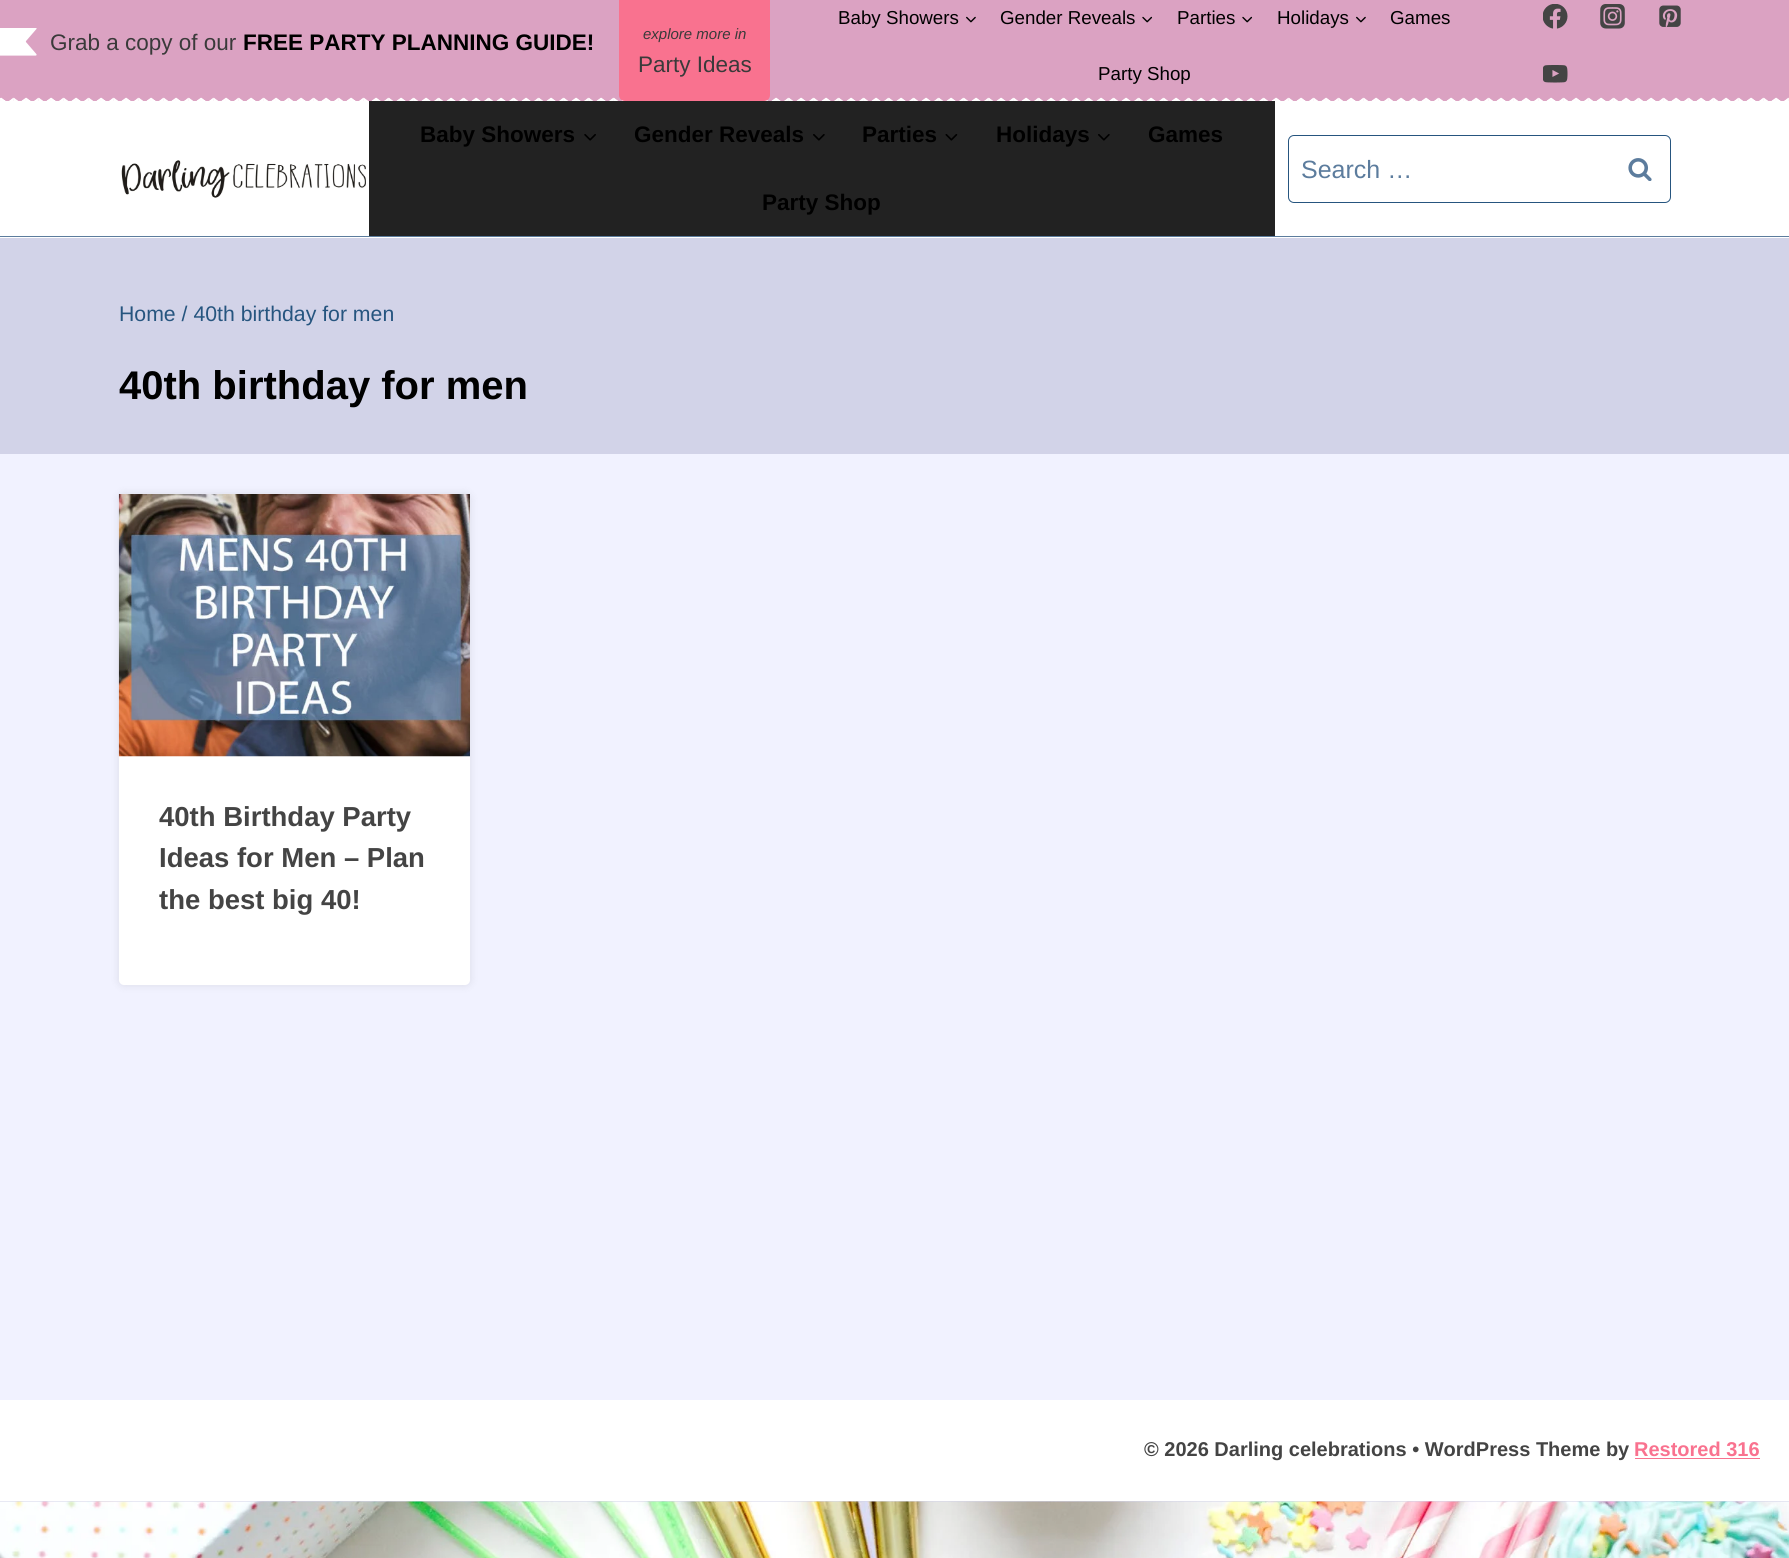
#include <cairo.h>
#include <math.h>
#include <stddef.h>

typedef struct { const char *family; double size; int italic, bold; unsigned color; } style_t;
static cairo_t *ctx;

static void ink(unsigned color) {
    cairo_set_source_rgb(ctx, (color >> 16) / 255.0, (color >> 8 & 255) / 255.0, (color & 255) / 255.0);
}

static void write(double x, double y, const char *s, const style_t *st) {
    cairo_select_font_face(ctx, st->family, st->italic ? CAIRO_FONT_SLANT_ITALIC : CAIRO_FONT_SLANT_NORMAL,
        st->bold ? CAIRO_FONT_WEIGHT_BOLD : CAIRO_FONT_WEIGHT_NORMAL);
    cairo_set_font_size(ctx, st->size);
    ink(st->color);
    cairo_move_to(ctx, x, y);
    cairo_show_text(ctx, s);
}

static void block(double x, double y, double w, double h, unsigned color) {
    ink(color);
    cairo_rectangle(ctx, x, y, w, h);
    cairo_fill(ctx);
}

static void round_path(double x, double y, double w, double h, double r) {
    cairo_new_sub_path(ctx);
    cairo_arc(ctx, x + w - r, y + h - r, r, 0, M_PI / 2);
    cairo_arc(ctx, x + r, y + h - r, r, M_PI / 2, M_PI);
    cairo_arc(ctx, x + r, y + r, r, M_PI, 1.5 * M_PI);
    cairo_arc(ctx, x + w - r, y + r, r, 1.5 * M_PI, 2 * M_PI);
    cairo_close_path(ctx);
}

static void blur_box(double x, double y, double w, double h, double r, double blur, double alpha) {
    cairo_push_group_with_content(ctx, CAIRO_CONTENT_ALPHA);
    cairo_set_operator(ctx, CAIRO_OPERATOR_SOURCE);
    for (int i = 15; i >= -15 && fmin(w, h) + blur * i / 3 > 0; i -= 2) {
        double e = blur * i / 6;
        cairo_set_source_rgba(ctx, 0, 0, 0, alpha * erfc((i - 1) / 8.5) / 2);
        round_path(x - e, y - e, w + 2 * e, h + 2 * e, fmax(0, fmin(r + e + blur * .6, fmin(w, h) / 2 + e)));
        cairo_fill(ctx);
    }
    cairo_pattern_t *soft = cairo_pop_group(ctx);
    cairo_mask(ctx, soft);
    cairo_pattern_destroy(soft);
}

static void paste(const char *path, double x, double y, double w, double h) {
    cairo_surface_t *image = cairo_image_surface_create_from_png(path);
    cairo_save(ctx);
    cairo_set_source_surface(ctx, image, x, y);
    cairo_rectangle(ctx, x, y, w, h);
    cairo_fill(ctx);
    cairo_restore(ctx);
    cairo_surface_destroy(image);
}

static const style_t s1 = {"Liberation Sans", 22.5, 0, 0, 0x3a3a3a};
static const style_t s2 = {"Liberation Sans", 22.5, 0, 1, 0x000000};
static const style_t s3 = {"Liberation Sans", 15, 1, 0, 0x3a3a3a};
static const style_t s4 = {"Liberation Sans", 18.75, 0, 0, 0x000000};
static const style_t s5 = {"Liberation Sans", 25, 0, 0, 0x5c7c9d};
static const style_t s6 = {"Liberation Sans", 21.25, 0, 0, 0x26557f};
static const style_t s7 = {"Liberation Sans", 40, 0, 1, 0x000000};
static const style_t s8 = {"Liberation Sans", 27.5, 0, 1, 0x444444};
static const style_t s9 = {"Liberation Sans", 20, 0, 1, 0x444444};
static const style_t s10 = {"Liberation Sans", 20, 0, 1, 0xf9728f};

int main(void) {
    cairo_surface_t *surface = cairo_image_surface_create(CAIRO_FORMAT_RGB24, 1789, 1558);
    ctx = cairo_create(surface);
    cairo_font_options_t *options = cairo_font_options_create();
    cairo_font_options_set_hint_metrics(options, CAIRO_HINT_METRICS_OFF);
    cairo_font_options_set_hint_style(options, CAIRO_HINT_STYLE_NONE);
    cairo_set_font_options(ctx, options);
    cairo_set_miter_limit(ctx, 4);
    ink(0xf1f2ff);
    cairo_paint(ctx);
    block(0, 101, 1789, 137, 0xffffff);
    block(0, 0, 1789, 101, 0xdba2c2);
    paste("pic1.png", 0, 97, 1789, 4);
    paste("pic2.png", 0, 28, 37, 28);
    write(50, 50, "Grab a copy of our", &s1);
    write(243, 50, "FREE PARTY PLANNING GUIDE!", &s2);
    ink(0xf9728f);
    cairo_new_path(ctx);
    cairo_move_to(ctx, 619, -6);
    cairo_line_to(ctx, 770, -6);
    cairo_line_to(ctx, 770, 95);
    cairo_curve_to(ctx, 770, 98.5, 767.5, 101, 764, 101);
    cairo_line_to(ctx, 625, 101);
    cairo_curve_to(ctx, 621.5, 101, 619, 98.5, 619, 95);
    cairo_close_path(ctx);
    cairo_fill(ctx);
    write(643, 39, "explore more in", &s3);
    write(638, 72, "Party Ideas", &s1);
    write(838, 24, "Baby Showers", &s4);
    paste("pic3.png", 966, 16, 10, 7);
    write(1000, 24, "Gender Reveals", &s4);
    paste("pic4.png", 1142, 16, 11, 7);
    write(1177, 24, "Parties", &s4);
    paste("pic4.png", 1242, 16, 11, 7);
    write(1277, 24, "Holidays", &s4);
    paste("pic3.png", 1356, 16, 10, 7);
    write(1390, 24, "Games", &s4);
    write(1098, 80, "Party Shop", &s4);
    paste("pic5.png", 1543, 4, 25, 25);
    paste("pic6.png", 1600, 4, 25, 25);
    paste("pic7.png", 1659, 5, 22, 22);
    paste("pic8.png", 1543, 65, 25, 18);
    block(0, 236, 1789, 1, 0x5c7c9d);
    paste("pic9.png", 121, 160, 245, 38);
    block(369, 101, 906, 135, 0x222222);
    write(420, 142, "Baby Showers", &s2);
    paste("pic10.png", 584, 134, 12, 7);
    write(634, 142, "Gender Reveals", &s2);
    paste("pic11.png", 813, 134, 12, 7);
    write(862, 142, "Parties", &s2);
    paste("pic12.png", 945, 134, 13, 7);
    write(996, 142, "Holidays", &s2);
    paste("pic11.png", 1098, 134, 12, 7);
    write(1148, 142, "Games", &s2);
    write(762, 210, "Party Shop", &s2);
    round_path(1288.5, 135.5, 382, 67, 5.5);
    ink(0x26557f);
    cairo_set_line_width(ctx, 1);
    cairo_stroke(ctx);
    write(1301, 178, "Search …", &s5);
    paste("pic13.png", 1628, 158, 24, 23);
    block(0, 238, 1789, 216, 0xd2d3e8);
    write(119, 321, "Home / 40th birthday for men", &s6);
    write(119, 399, "40th birthday for men", &s7);
    ink(0x000000);
    blur_box(119, 494, 351, 491, 5, 4.5, 0.1);
    ink(0xffffff);
    round_path(119, 494, 351, 491, 5);
    cairo_fill(ctx);
    paste("pic14.png", 118, 494, 352, 263);
    write(159, 826, "40th Birthday Party", &s8);
    write(159, 867, "Ideas for Men – Plan", &s8);
    write(159, 909, "the best big 40!", &s8);
    block(0, 1400, 1789, 101, 0xffffff);
    write(1144, 1456, "© 2026 Darling celebrations • WordPress Theme by", &s9);
    write(1634, 1456, "Restored 316", &s10);
    block(1635, 1458, 125, 1, 0xf9728f);
    block(0, 1501, 1789, 1, 0xd2d3e8);
    paste("pic15.png", 0, 1501, 1789, 57);
    cairo_surface_write_to_png(surface, "screenshot.png");
    cairo_font_options_destroy(options);
    cairo_destroy(ctx);
    cairo_surface_destroy(surface);
    return 0;
}
